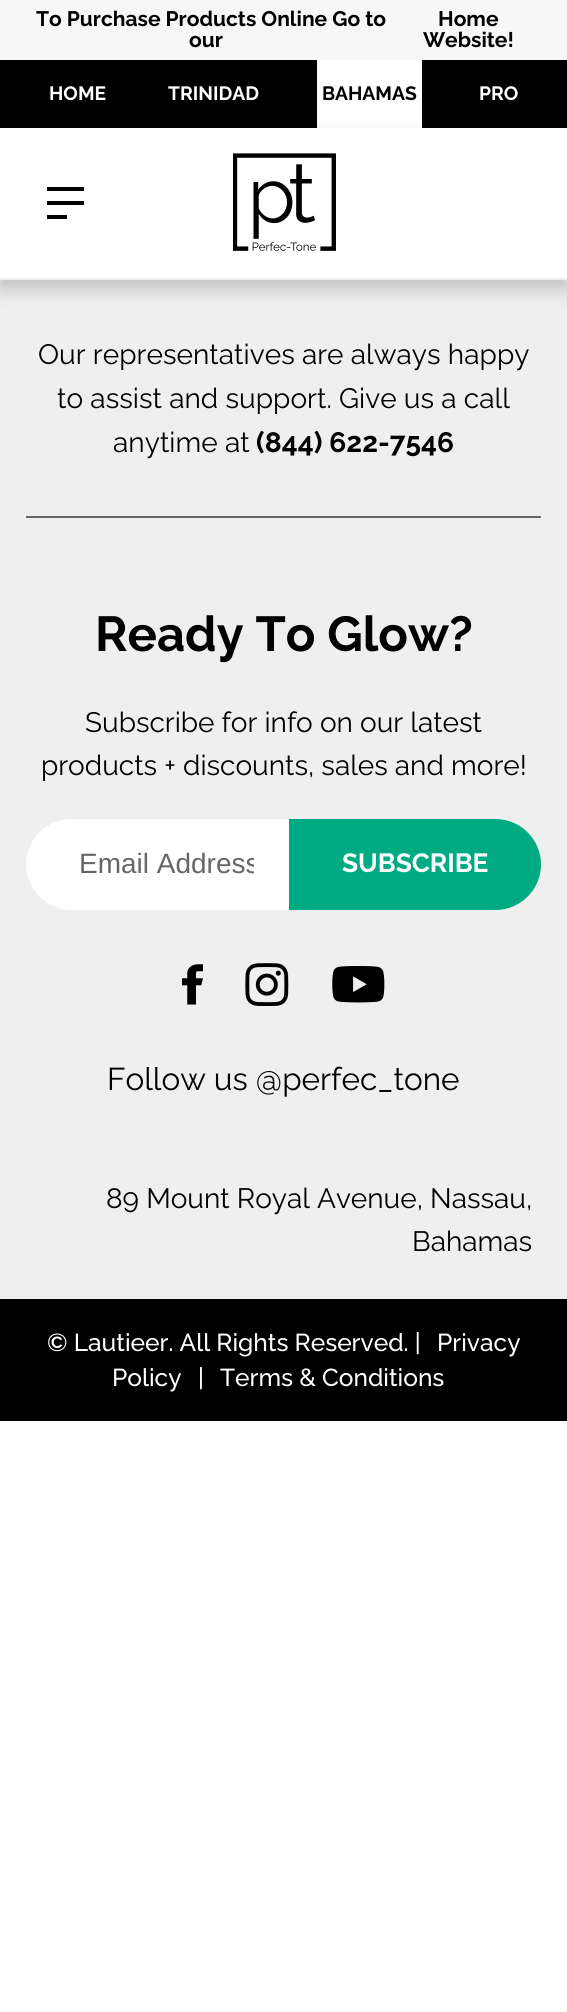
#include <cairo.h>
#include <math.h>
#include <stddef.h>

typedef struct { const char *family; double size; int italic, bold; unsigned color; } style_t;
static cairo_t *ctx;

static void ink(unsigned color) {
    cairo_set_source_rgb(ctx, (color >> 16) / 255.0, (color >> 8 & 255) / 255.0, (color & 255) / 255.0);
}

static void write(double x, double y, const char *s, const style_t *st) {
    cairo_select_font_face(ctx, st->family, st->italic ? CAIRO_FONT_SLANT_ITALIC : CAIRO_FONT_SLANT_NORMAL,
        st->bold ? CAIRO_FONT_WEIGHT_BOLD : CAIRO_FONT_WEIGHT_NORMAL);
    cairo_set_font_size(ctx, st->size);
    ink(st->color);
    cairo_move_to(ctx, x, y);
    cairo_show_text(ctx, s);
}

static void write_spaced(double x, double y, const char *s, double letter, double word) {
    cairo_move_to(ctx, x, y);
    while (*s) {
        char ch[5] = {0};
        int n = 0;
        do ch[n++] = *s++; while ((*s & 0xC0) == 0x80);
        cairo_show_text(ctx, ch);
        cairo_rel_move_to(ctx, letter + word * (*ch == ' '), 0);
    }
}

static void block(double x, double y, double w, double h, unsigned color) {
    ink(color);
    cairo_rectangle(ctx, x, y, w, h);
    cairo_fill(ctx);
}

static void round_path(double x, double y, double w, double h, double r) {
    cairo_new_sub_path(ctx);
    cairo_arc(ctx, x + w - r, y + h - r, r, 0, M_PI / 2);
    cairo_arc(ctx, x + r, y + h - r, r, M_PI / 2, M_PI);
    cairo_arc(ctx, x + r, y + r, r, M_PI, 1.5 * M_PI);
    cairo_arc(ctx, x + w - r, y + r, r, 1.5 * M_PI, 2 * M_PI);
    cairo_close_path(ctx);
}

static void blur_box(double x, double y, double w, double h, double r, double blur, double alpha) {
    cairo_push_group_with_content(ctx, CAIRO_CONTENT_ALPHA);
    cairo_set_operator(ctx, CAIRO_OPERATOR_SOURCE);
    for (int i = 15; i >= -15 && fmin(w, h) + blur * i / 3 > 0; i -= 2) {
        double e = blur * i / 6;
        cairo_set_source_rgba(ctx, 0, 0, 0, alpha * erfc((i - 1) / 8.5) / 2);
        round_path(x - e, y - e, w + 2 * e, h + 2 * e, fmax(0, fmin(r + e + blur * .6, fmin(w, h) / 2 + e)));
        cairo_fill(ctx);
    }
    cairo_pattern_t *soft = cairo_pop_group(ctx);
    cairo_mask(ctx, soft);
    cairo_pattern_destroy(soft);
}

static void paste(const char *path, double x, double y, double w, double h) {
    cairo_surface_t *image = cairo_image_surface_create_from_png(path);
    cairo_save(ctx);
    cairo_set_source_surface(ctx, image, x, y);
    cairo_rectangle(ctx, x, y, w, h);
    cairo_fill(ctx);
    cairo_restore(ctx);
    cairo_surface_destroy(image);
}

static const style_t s1 = {"Raleway", 21, 0, 1, 0x000000};
static const style_t s2 = {"Raleway", 19.25, 0, 1, 0xffffff};
static const style_t s3 = {"Raleway", 19.25, 0, 1, 0x000000};
static const style_t s4 = {"Raleway", 49, 0, 1, 0x000000};
static const style_t s5 = {"Raleway", 28, 0, 0, 0x000000};
static const style_t s6 = {"Liberation Sans", 28, 0, 0, 0x666666};
static const style_t s7 = {"Raleway", 26.25, 0, 1, 0xffffff};
static const style_t s8 = {"Raleway", 31.5, 0, 0, 0x000000};
static const style_t s9 = {"Raleway Medium", 24.5, 0, 0, 0xffffff};

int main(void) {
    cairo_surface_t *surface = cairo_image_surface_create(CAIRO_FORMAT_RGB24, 567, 2012);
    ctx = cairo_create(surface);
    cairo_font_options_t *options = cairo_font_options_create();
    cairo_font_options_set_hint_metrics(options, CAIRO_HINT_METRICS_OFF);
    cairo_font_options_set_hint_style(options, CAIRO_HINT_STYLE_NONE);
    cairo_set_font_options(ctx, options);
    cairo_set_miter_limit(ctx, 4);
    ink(0xffffff);
    cairo_paint(ctx);
    block(0, 0, 567, 60, 0xf7f7f7);
    write(36, 26, "To Purchase Products Online Go to", &s1);
    write(438, 26, "Home", &s1);
    write(423, 47, "Website!", &s1);
    write(189, 47, "our", &s1);
    block(0, 60, 567, 68, 0x000000);
    write(49, 100, "HOME", &s2);
    write(168, 100, "TRINIDAD", &s2);
    block(317, 60, 105, 68, 0xffffff);
    write(322, 100, "BAHAMAS", &s3);
    write(479, 100, "PRO", &s2);
    block(0, 280, 567, 1019, 0xefefef);
    cairo_save(ctx);
    cairo_set_fill_rule(ctx, CAIRO_FILL_RULE_EVEN_ODD);
    cairo_new_path(ctx);
    cairo_move_to(ctx, 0, 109);
    cairo_line_to(ctx, 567, 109);
    cairo_line_to(ctx, 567, 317);
    cairo_line_to(ctx, 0, 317);
    cairo_close_path(ctx);
    cairo_move_to(ctx, 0, 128);
    cairo_line_to(ctx, 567, 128);
    cairo_line_to(ctx, 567, 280);
    cairo_line_to(ctx, 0, 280);
    cairo_close_path(ctx);
    cairo_clip(ctx);
    ink(0x000000);
    blur_box(0, 137, 567, 152, 0, 9, 0.2);
    cairo_restore(ctx);
    block(0, 278, 567, 2, 0xefefef);
    block(47, 201, 37, 4, 0x000000);
    block(47, 187, 37, 4, 0x000000);
    block(47, 215, 20, 4, 0x000000);
    paste("pic1.png", 233, 153, 103, 98);
    block(26, 516, 515, 2, 0x666666);
    cairo_select_font_face(ctx, "Raleway", CAIRO_FONT_SLANT_NORMAL, CAIRO_FONT_WEIGHT_NORMAL);
    cairo_set_font_size(ctx, 28);
    ink(0x000000);
    write_spaced(38, 364, "Our representatives are always happy", 0.05, 0);
    write_spaced(57, 408, "to assist and support. Give us a call", 0.05, 0);
    write_spaced(113, 452, "anytime at", 0.05, 0);
    cairo_select_font_face(ctx, "Raleway", CAIRO_FONT_SLANT_NORMAL, CAIRO_FONT_WEIGHT_BOLD);
    write_spaced(256, 452, "(844) 622-7546", 0.05, 0);
    write(95, 651, "Ready To Glow?", &s4);
    write(85, 732, "Subscribe for info on our latest", &s5);
    write(41, 775, "products + discounts, sales and more!", &s5);
    ink(0xffffff);
    cairo_new_path(ctx);
    cairo_move_to(ctx, 71.5, 819);
    cairo_line_to(ctx, 289, 819);
    cairo_line_to(ctx, 289, 910);
    cairo_line_to(ctx, 71.5, 910);
    cairo_curve_to(ctx, 46.5, 910, 26, 889.5, 26, 864.5);
    cairo_curve_to(ctx, 26, 839.5, 46.5, 819, 71.5, 819);
    cairo_close_path(ctx);
    cairo_fill(ctx);
    cairo_save(ctx);
    cairo_rectangle(ctx, 79, 849, 175, 31);
    cairo_clip(ctx);
    write(79, 873, "Email Address", &s6);
    cairo_restore(ctx);
    ink(0x00ab84);
    cairo_new_path(ctx);
    cairo_move_to(ctx, 289, 819);
    cairo_line_to(ctx, 495.5, 819);
    cairo_curve_to(ctx, 520.5, 819, 541, 839.5, 541, 864.5);
    cairo_curve_to(ctx, 541, 889.5, 520.5, 910, 495.5, 910);
    cairo_line_to(ctx, 289, 910);
    cairo_close_path(ctx);
    cairo_fill(ctx);
    write(342, 872, "SUBSCRIBE", &s7);
    paste("pic2.png", 182, 964, 21, 41);
    paste("pic3.png", 245, 963, 44, 43);
    paste("pic4.png", 332, 966, 53, 37);
    write(107, 1090, "Follow us @perfec_tone", &s8);
    write(106, 1208, "89 Mount Royal Avenue, Nassau,", &s5);
    write(412, 1251, "Bahamas", &s5);
    block(0, 1299, 567, 122, 0x000000);
    write(47, 1351, "© Lautieer. All Rights Reserved. |", &s9);
    write(437, 1351, "Privacy", &s9);
    write(112, 1386, "Policy", &s9);
    write(198, 1386, "|", &s9);
    write(220, 1386, "Terms & Conditions", &s9);
    cairo_surface_write_to_png(surface, "screenshot.png");
    cairo_font_options_destroy(options);
    cairo_destroy(ctx);
    cairo_surface_destroy(surface);
    return 0;
}
